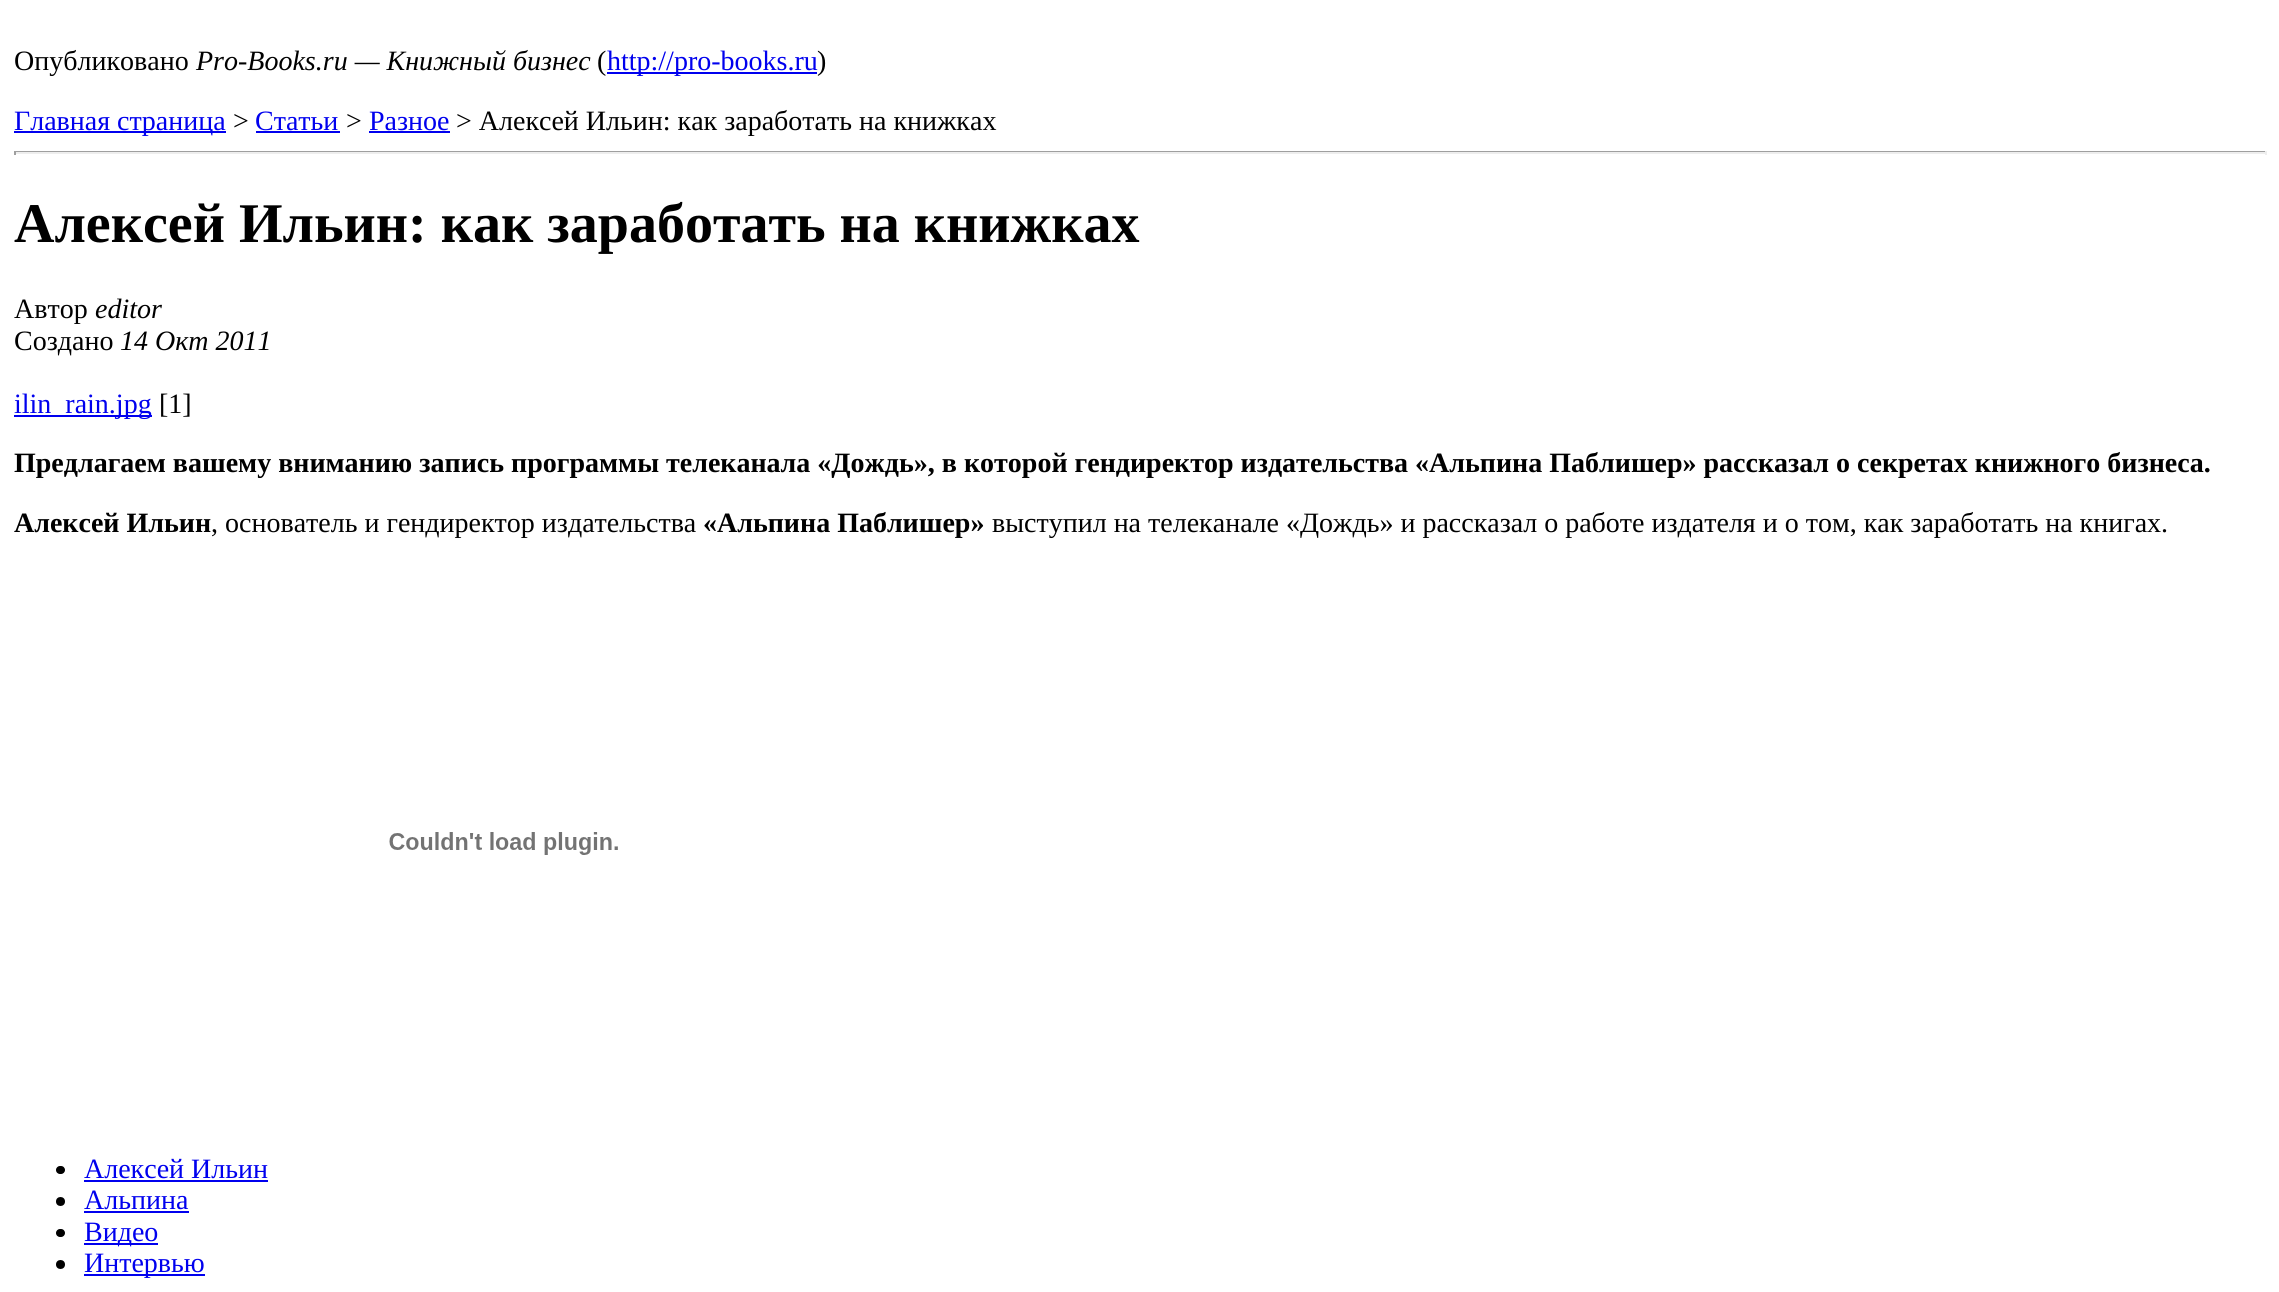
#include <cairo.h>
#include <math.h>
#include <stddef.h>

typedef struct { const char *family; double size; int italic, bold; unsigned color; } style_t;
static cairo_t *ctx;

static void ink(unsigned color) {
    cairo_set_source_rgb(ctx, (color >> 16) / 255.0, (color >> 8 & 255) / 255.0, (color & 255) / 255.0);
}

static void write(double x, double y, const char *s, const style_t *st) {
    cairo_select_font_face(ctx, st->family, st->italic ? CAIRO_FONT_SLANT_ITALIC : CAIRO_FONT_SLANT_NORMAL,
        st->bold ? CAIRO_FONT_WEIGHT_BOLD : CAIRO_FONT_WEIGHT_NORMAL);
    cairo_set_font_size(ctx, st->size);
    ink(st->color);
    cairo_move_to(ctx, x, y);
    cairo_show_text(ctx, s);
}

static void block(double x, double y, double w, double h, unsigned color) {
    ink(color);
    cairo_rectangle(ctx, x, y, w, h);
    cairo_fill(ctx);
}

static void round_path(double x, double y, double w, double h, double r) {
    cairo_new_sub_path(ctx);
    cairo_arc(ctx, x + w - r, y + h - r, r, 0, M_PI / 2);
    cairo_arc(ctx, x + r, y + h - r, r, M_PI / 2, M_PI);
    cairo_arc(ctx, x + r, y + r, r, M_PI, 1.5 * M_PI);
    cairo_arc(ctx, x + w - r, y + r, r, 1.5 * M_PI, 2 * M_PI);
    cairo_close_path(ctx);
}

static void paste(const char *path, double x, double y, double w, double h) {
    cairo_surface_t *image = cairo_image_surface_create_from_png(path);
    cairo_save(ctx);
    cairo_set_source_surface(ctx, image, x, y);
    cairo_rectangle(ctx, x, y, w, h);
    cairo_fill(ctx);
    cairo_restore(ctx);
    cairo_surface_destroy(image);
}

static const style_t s1 = {"Liberation Serif", 28, 0, 0, 0x000000};
static const style_t s2 = {"Liberation Serif", 28, 1, 0, 0x000000};
static const style_t s3 = {"Liberation Serif", 28, 0, 0, 0x0000ee};
static const style_t s4 = {"Liberation Serif", 56, 0, 1, 0x000000};
static const style_t s5 = {"Liberation Serif", 28, 0, 1, 0x000000};

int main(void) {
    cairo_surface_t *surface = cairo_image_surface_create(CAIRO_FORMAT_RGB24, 2279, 1292);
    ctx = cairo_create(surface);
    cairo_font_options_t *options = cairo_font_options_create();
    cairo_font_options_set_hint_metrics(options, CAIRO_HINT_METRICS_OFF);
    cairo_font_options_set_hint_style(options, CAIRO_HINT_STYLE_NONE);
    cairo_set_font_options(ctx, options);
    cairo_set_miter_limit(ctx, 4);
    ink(0xffffff);
    cairo_paint(ctx);
    write(14, 70, "Опубликовано", &s1);
    write(196, 70, "Pro-Books.ru — Книжный бизнес", &s2);
    write(597, 70, "(", &s1);
    block(607, 72, 210, 2, 0x0000ee);
    write(607, 70, "http://pro-books.ru", &s3);
    write(817, 70, ")", &s1);
    block(14, 131, 212, 2, 0x0000ee);
    write(14, 130, "Главная страница", &s3);
    write(233, 130, ">", &s1);
    write(255, 130, "Статьи", &s3);
    block(256, 131, 84, 2, 0x0000ee);
    write(346, 130, ">", &s1);
    write(369, 130, "Разное", &s3);
    block(369, 131, 81, 2, 0x0000ee);
    write(456, 130, "> Алексей Ильин: как заработать на книжках", &s1);
    block(14, 151, 2252, 1, 0x9f9f9f);
    block(2265, 151, 2, 4, 0xeeeeee);
    block(14, 152, 2252, 2, 0xeeeeee);
    block(14, 151, 2, 4, 0x9f9f9f);
    write(14, 242, "Алексей Ильин: как заработать на книжках", &s4);
    write(14, 318, "Автор", &s1);
    write(95, 318, "editor", &s2);
    write(14, 350, "Создано", &s1);
    write(120, 350, "14 Окт 2011", &s2);
    block(14, 415, 138, 2, 0x0000ee);
    write(14, 413, "ilin_rain.jpg", &s3);
    write(159, 413, "[1]", &s1);
    write(14, 472, "Предлагаем вашему вниманию запись программы телеканала «Дождь», в которой гендиректор издательства «Альпина Паблишер» рассказал о секретах книжного бизнеса.", &s5);
    write(14, 532, "Алексей Ильин", &s5);
    write(211, 532, ", основатель и гендиректор издательства", &s1);
    write(703, 532, "«Альпина Паблишер»", &s5);
    write(992, 532, "выступил на телеканале «Дождь» и рассказал о работе издателя и о том, как заработать на книгах.", &s1);
    paste("pic1.png", 389, 832, 229, 23);
    round_path(56, 1166, 9, 8, 4);
    cairo_fill(ctx);
    write(84, 1178, "Алексей Ильин", &s3);
    block(84, 1180, 184, 2, 0x0000ee);
    ink(0x000000);
    cairo_new_path(ctx);
    cairo_arc(ctx, 60.5, 1201.5, 4.5, 0, 2 * M_PI);
    cairo_fill(ctx);
    write(84, 1209, "Альпина", &s3);
    block(84, 1211, 105, 2, 0x0000ee);
    ink(0x000000);
    round_path(56, 1229, 9, 8, 4);
    cairo_fill(ctx);
    block(84, 1243, 74, 2, 0x0000ee);
    write(84, 1241, "Видео", &s3);
    ink(0x000000);
    cairo_new_path(ctx);
    cairo_arc(ctx, 60.5, 1264.5, 4.5, 0, 2 * M_PI);
    cairo_fill(ctx);
    block(84, 1274, 121, 2, 0x0000ee);
    write(84, 1272, "Интервью", &s3);
    cairo_surface_write_to_png(surface, "screenshot.png");
    cairo_font_options_destroy(options);
    cairo_destroy(ctx);
    cairo_surface_destroy(surface);
    return 0;
}
